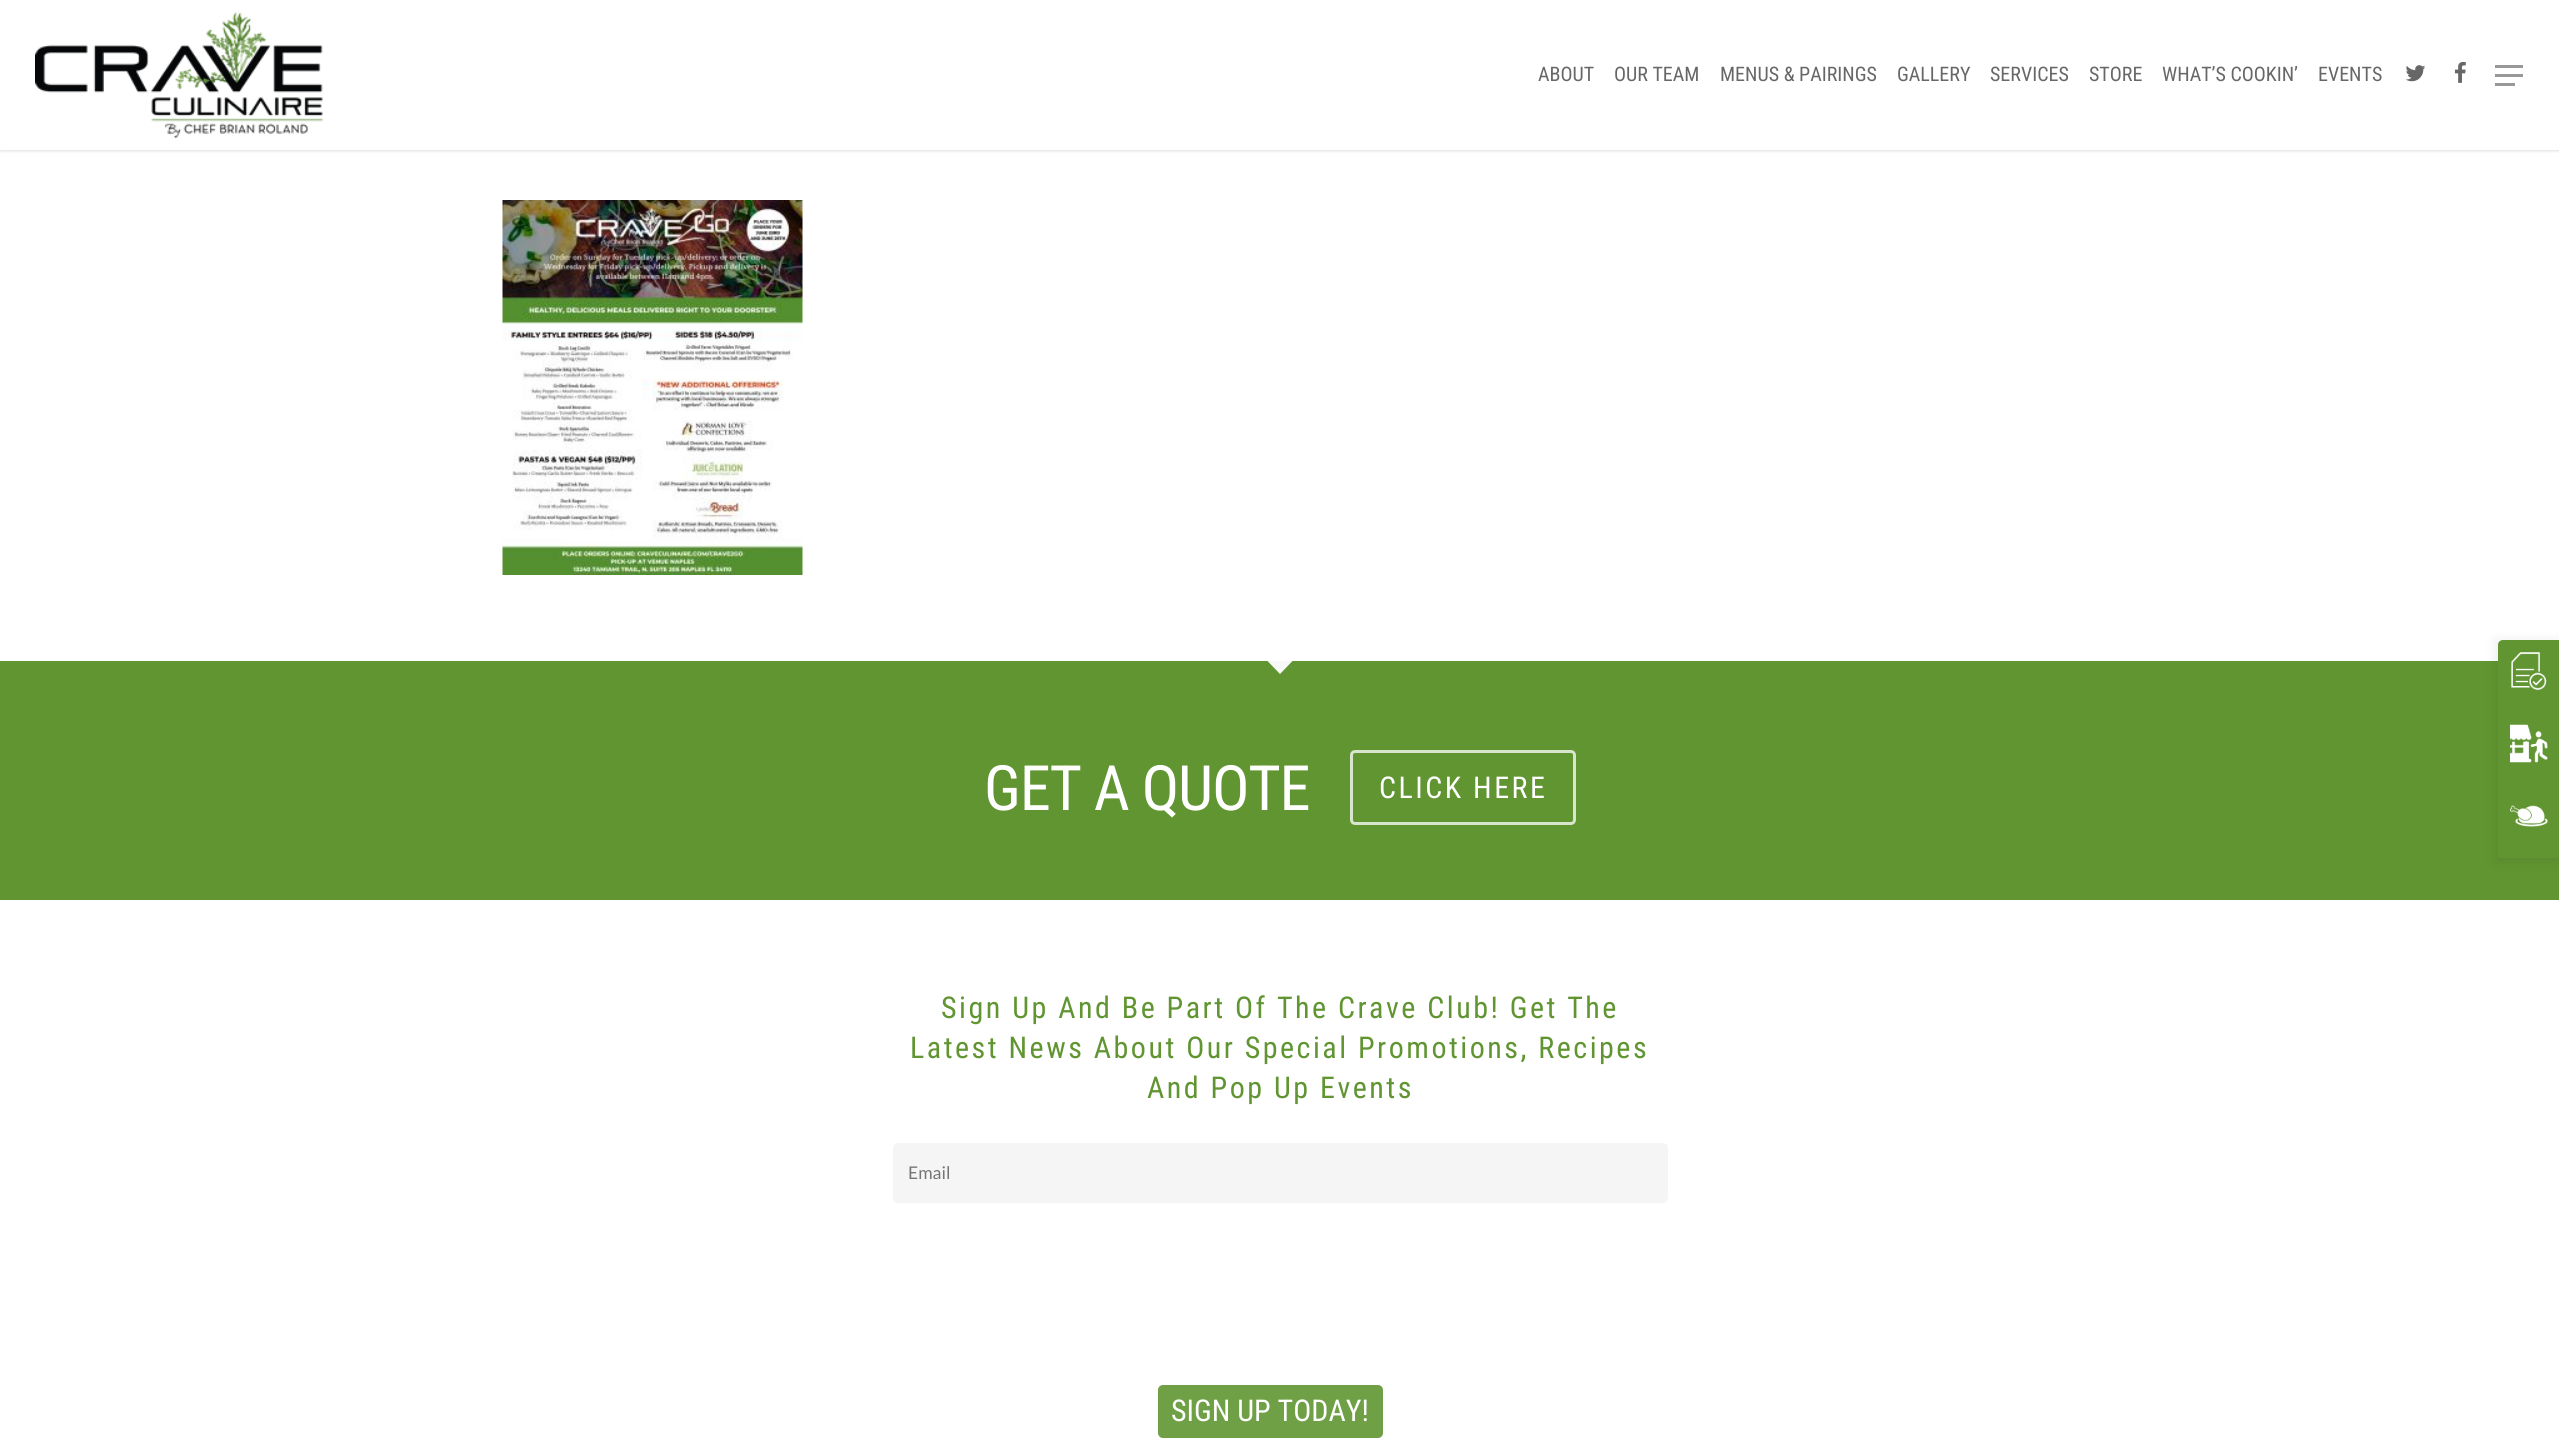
#include <cairo.h>
#include <math.h>
#include <stddef.h>

typedef struct { const char *family; double size; int italic, bold; unsigned color; } style_t;
static cairo_t *ctx;

static void ink(unsigned color) {
    cairo_set_source_rgb(ctx, (color >> 16) / 255.0, (color >> 8 & 255) / 255.0, (color & 255) / 255.0);
}

static void write(double x, double y, const char *s, const style_t *st) {
    cairo_select_font_face(ctx, st->family, st->italic ? CAIRO_FONT_SLANT_ITALIC : CAIRO_FONT_SLANT_NORMAL,
        st->bold ? CAIRO_FONT_WEIGHT_BOLD : CAIRO_FONT_WEIGHT_NORMAL);
    cairo_set_font_size(ctx, st->size);
    ink(st->color);
    cairo_move_to(ctx, x, y);
    cairo_show_text(ctx, s);
}

static void write_spaced(double x, double y, const char *s, double letter, double word) {
    cairo_move_to(ctx, x, y);
    while (*s) {
        char ch[5] = {0};
        int n = 0;
        do ch[n++] = *s++; while ((*s & 0xC0) == 0x80);
        cairo_show_text(ctx, ch);
        cairo_rel_move_to(ctx, letter + word * (*ch == ' '), 0);
    }
}

static void block(double x, double y, double w, double h, unsigned color) {
    ink(color);
    cairo_rectangle(ctx, x, y, w, h);
    cairo_fill(ctx);
}

static void round_path(double x, double y, double w, double h, double r) {
    cairo_new_sub_path(ctx);
    cairo_arc(ctx, x + w - r, y + h - r, r, 0, M_PI / 2);
    cairo_arc(ctx, x + r, y + h - r, r, M_PI / 2, M_PI);
    cairo_arc(ctx, x + r, y + r, r, M_PI, 1.5 * M_PI);
    cairo_arc(ctx, x + w - r, y + r, r, 1.5 * M_PI, 2 * M_PI);
    cairo_close_path(ctx);
}

static void blur_box(double x, double y, double w, double h, double r, double blur, double alpha) {
    cairo_push_group_with_content(ctx, CAIRO_CONTENT_ALPHA);
    cairo_set_operator(ctx, CAIRO_OPERATOR_SOURCE);
    for (int i = 15; i >= -15 && fmin(w, h) + blur * i / 3 > 0; i -= 2) {
        double e = blur * i / 6;
        cairo_set_source_rgba(ctx, 0, 0, 0, alpha * erfc((i - 1) / 8.5) / 2);
        round_path(x - e, y - e, w + 2 * e, h + 2 * e, fmax(0, fmin(r + e + blur * .6, fmin(w, h) / 2 + e)));
        cairo_fill(ctx);
    }
    cairo_pattern_t *soft = cairo_pop_group(ctx);
    cairo_mask(ctx, soft);
    cairo_pattern_destroy(soft);
}

static void paste(const char *path, double x, double y, double w, double h) {
    cairo_surface_t *image = cairo_image_surface_create_from_png(path);
    cairo_save(ctx);
    cairo_set_source_surface(ctx, image, x, y);
    cairo_rectangle(ctx, x, y, w, h);
    cairo_fill(ctx);
    cairo_restore(ctx);
    cairo_surface_destroy(image);
}

static const style_t s1 = {"Roboto Condensed", 20, 0, 0, 0x676767};
static const style_t s2 = {"Lato", 17.5, 0, 0, 0x757575};
static const style_t s3 = {"Roboto Condensed", 30, 0, 0, 0xffffff};

int main(void) {
    cairo_surface_t *surface = cairo_image_surface_create(CAIRO_FORMAT_RGB24, 2559, 1456);
    ctx = cairo_create(surface);
    cairo_font_options_t *options = cairo_font_options_create();
    cairo_font_options_set_hint_metrics(options, CAIRO_HINT_METRICS_OFF);
    cairo_font_options_set_hint_style(options, CAIRO_HINT_STYLE_NONE);
    cairo_set_font_options(ctx, options);
    cairo_set_miter_limit(ctx, 4);
    ink(0xffffff);
    cairo_paint(ctx);
    cairo_save(ctx);
    cairo_rectangle(ctx, 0, 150, 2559, 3);
    cairo_clip(ctx);
    ink(0x000000);
    blur_box(0, 0, 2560, 150, 0, 2, 0.22);
    cairo_restore(ctx);
    paste("pic1.png", 35, 12, 288, 126);
    write(1538, 81, "ABOUT", &s1);
    write(1614, 81, "OUR TEAM", &s1);
    write(1720, 81, "MENUS & PAIRINGS", &s1);
    write(1897, 81, "GALLERY", &s1);
    write(1990, 81, "SERVICES", &s1);
    write(2089, 81, "STORE", &s1);
    write(2162, 81, "WHAT’S COOKIN’", &s1);
    write(2318, 81, "EVENTS", &s1);
    paste("pic2.png", 2405, 65, 21, 17);
    paste("pic3.png", 2454, 62, 12, 21);
    block(2495, 65, 28, 3, 0x999999);
    block(2495, 83, 20, 3, 0x999999);
    block(2495, 74, 28, 3, 0x999999);
    paste("pic4.png", 502, 200, 301, 375);
    block(0, 661, 2559, 239, 0x609531);
    ink(0xf8f8f8);
    cairo_new_path(ctx);
    cairo_move_to(ctx, 1267.5, 661);
    cairo_line_to(ctx, 1292.5, 661);
    cairo_line_to(ctx, 1280, 674);
    cairo_close_path(ctx);
    cairo_fill(ctx);
    cairo_set_font_size(ctx, 62.5);
    ink(0xffffff);
    write_spaced(984, 810, "GET A QUOTE", -1.25, 0);
    round_path(1351.5, 751.5, 223, 72, 3.5);
    ink(0xd7e5cc);
    cairo_set_line_width(ctx, 3);
    cairo_stroke(ctx);
    cairo_set_font_size(ctx, 30);
    ink(0xffffff);
    write_spaced(1379, 798, "CLICK HERE", 2.5, 0);
    ink(0x609532);
    write_spaced(941, 1018, "Sign Up And Be Part Of The Crave Club! Get The", 2.5, 0);
    write_spaced(910, 1058, "Latest News About Our Special Promotions, Recipes", 2.5, 0);
    write_spaced(1147, 1098, "And Pop Up Events", 2.5, 0);
    ink(0xf5f5f5);
    round_path(893, 1143, 775, 60, 5);
    cairo_fill(ctx);
    write(908, 1179, "Email", &s2);
    ink(0x70a046);
    round_path(1158, 1385, 225, 53, 5);
    cairo_fill(ctx);
    write(1171, 1421, "SIGN UP TODAY!", &s3);
    cairo_save(ctx);
    cairo_set_fill_rule(ctx, CAIRO_FILL_RULE_EVEN_ODD);
    cairo_new_path(ctx);
    cairo_move_to(ctx, 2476, 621);
    cairo_line_to(ctx, 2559, 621);
    cairo_line_to(ctx, 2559, 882);
    cairo_line_to(ctx, 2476, 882);
    cairo_close_path(ctx);
    cairo_move_to(ctx, 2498, 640);
    cairo_line_to(ctx, 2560, 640);
    cairo_line_to(ctx, 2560, 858);
    cairo_line_to(ctx, 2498, 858);
    cairo_close_path(ctx);
    cairo_clip(ctx);
    ink(0x000000);
    blur_box(2495, 640, 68, 223, 0, 6, 0.07);
    cairo_restore(ctx);
    ink(0x609531);
    cairo_new_path(ctx);
    cairo_move_to(ctx, 2503, 640);
    cairo_line_to(ctx, 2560, 640);
    cairo_line_to(ctx, 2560, 713);
    cairo_line_to(ctx, 2498, 713);
    cairo_line_to(ctx, 2498, 645);
    cairo_curve_to(ctx, 2498, 642, 2500, 640, 2503, 640);
    cairo_close_path(ctx);
    cairo_fill(ctx);
    paste("pic5.png", 2510, 652, 37, 38);
    paste("pic6.png", 2510, 724, 38, 39);
    cairo_new_path(ctx);
    cairo_move_to(ctx, 2498, 785);
    cairo_line_to(ctx, 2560, 785);
    cairo_line_to(ctx, 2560, 858);
    cairo_line_to(ctx, 2503, 858);
    cairo_curve_to(ctx, 2500, 858, 2498, 856, 2498, 853);
    cairo_close_path(ctx);
    cairo_fill(ctx);
    paste("pic7.png", 2510, 805, 38, 22);
    cairo_surface_write_to_png(surface, "screenshot.png");
    cairo_font_options_destroy(options);
    cairo_destroy(ctx);
    cairo_surface_destroy(surface);
    return 0;
}
